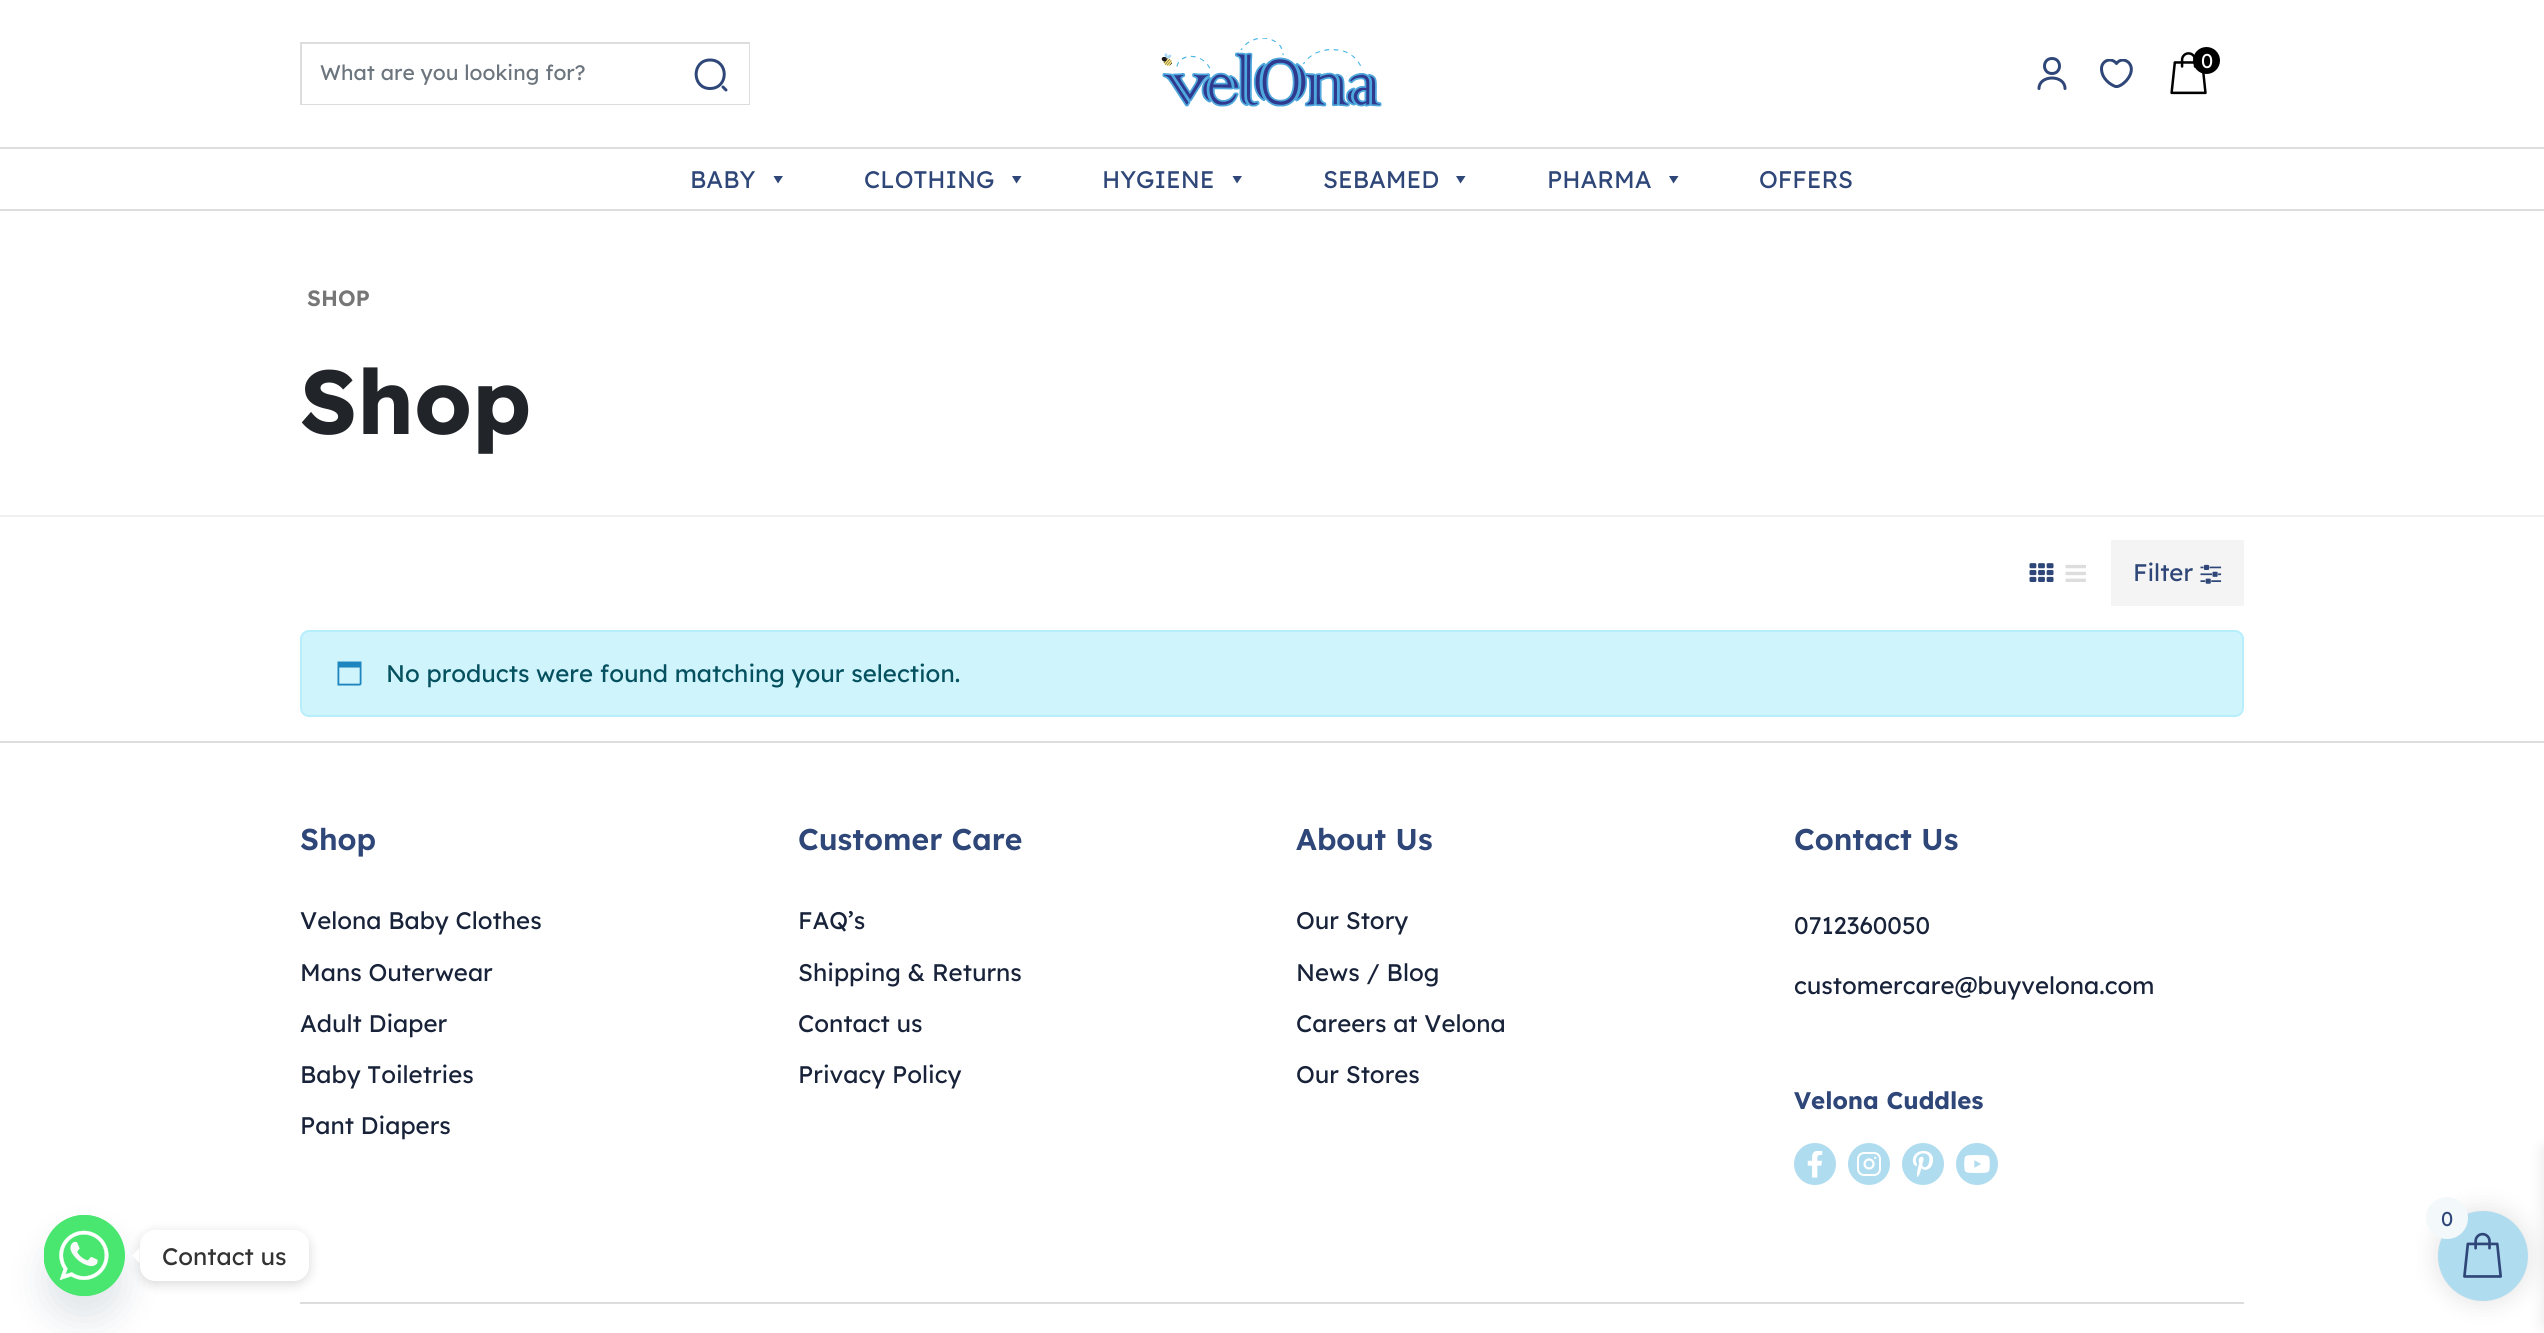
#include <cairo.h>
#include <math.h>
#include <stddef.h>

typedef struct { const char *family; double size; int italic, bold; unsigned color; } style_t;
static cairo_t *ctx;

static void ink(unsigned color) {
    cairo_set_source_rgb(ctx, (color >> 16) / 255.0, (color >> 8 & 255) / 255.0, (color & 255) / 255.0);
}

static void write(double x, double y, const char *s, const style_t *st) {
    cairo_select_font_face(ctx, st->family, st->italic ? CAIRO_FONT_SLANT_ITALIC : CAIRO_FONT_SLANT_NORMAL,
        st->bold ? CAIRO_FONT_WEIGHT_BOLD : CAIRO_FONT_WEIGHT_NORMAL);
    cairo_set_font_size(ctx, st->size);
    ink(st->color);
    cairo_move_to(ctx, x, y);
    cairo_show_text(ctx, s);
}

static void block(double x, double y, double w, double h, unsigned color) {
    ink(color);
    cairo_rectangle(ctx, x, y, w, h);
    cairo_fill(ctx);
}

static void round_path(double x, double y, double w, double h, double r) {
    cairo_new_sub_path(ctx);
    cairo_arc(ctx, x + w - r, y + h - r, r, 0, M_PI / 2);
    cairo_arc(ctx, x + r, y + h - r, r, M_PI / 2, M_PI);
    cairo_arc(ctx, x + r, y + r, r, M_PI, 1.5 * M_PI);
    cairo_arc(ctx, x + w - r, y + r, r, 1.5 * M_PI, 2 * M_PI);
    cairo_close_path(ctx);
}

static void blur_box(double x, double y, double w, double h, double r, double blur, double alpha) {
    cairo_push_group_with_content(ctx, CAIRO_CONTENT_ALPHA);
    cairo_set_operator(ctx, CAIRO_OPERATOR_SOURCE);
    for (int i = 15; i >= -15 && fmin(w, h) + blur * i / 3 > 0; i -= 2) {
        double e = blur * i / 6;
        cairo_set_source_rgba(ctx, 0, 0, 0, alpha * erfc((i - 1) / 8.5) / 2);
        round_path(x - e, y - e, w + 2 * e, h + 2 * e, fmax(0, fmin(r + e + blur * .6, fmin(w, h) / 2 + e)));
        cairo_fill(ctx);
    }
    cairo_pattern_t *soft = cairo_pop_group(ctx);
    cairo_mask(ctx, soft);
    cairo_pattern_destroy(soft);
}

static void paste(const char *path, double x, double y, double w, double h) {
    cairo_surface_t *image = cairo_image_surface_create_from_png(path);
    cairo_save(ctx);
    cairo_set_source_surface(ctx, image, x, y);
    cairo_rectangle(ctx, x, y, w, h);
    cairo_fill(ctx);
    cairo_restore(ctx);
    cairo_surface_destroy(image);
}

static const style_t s1 = {"Lexend", 20, 0, 0, 0xffffff};
static const style_t s2 = {"Lexend", 21, 0, 0, 0x6c757d};
static const style_t s3 = {"Lexend", 24, 0, 0, 0x2f4778};
static const style_t s4 = {"Lexend SemiBold", 22, 0, 0, 0x767676};
static const style_t s5 = {"Lexend", 90, 0, 1, 0x212529};
static const style_t s6 = {"Lexend", 24, 0, 0, 0x055160};
static const style_t s7 = {"Lexend SemiBold", 30, 0, 0, 0x2f4778};
static const style_t s8 = {"Lexend", 24, 0, 0, 0x18233a};
static const style_t s9 = {"Lexend", 24, 0, 1, 0x2f4778};
static const style_t s10 = {"Lexend", 20, 0, 0, 0x2f4778};
static const style_t s11 = {"Lexend", 24, 0, 0, 0x333333};

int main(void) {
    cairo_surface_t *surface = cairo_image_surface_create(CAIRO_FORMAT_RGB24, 2544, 1333);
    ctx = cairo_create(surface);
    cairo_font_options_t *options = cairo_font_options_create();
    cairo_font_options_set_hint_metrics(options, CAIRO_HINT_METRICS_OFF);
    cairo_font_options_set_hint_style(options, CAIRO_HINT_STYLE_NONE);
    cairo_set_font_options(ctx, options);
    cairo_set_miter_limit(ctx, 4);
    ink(0xffffff);
    cairo_paint(ctx);
    block(0, 147, 2544, 2, 0xdddddd);
    paste("pic1.png", 1161, 38, 221, 69);
    cairo_new_path(ctx);
    cairo_move_to(ctx, 2052, 73.5);
    cairo_curve_to(ctx, 2062, 73.5, 2062, 58.5, 2052, 58.5);
    cairo_curve_to(ctx, 2042, 58.5, 2042, 73.5, 2052, 73.5);
    cairo_close_path(ctx);
    cairo_move_to(ctx, 2065, 88.5);
    cairo_curve_to(ctx, 2065, 74.5, 2039, 74.5, 2039, 88.5);
    ink(0x2f4778);
    cairo_set_line_width(ctx, 3);
    cairo_set_line_cap(ctx, CAIRO_LINE_CAP_ROUND);
    cairo_set_line_join(ctx, CAIRO_LINE_JOIN_ROUND);
    cairo_stroke(ctx);
    cairo_save(ctx);
    cairo_rectangle(ctx, 2100, 59, 33, 30);
    cairo_clip(ctx);
    cairo_new_path(ctx);
    cairo_move_to(ctx, 2117.5, 86.5);
    cairo_line_to(ctx, 2115.5, 86.5);
    cairo_curve_to(ctx, 2111, 85, 2101.5, 79, 2101.5, 68.5);
    cairo_curve_to(ctx, 2101.5, 64, 2105, 60, 2110, 60);
    cairo_curve_to(ctx, 2112.5, 60, 2115, 61.5, 2116.5, 63.5);
    cairo_curve_to(ctx, 2123, 54.5, 2138, 64.5, 2128, 78.5);
    cairo_curve_to(ctx, 2125.5, 82, 2121.5, 85.5, 2117.5, 86.5);
    cairo_close_path(ctx);
    cairo_stroke(ctx);
    cairo_restore(ctx);
    paste("pic2.png", 2170, 52, 37, 43);
    ink(0x000000);
    cairo_arc(ctx, 2206.5, 60.5, 13.5, 0, 2 * M_PI);
    cairo_fill(ctx);
    write(2201, 68, "0", &s1);
    cairo_rectangle(ctx, 301, 43, 448, 61);
    ink(0xdddddd);
    cairo_set_line_width(ctx, 2);
    cairo_set_line_cap(ctx, CAIRO_LINE_CAP_BUTT);
    cairo_set_line_join(ctx, CAIRO_LINE_JOIN_MITER);
    cairo_stroke(ctx);
    block(302, 103, 372, 1, 0xffffff);
    write(320, 80, "What are you looking for?", &s2);
    block(674, 44, 75, 60, 0xffffff);
    cairo_new_path(ctx);
    cairo_move_to(ctx, 710, 88.5);
    cairo_curve_to(ctx, 729, 88.5, 729, 60, 710, 60);
    cairo_curve_to(ctx, 691.5, 60, 691.5, 88.5, 710, 88.5);
    cairo_close_path(ctx);
    cairo_move_to(ctx, 726, 90);
    cairo_line_to(ctx, 723, 87);
    ink(0x2f4778);
    cairo_set_line_width(ctx, 3);
    cairo_set_line_cap(ctx, CAIRO_LINE_CAP_ROUND);
    cairo_set_line_join(ctx, CAIRO_LINE_JOIN_ROUND);
    cairo_stroke(ctx);
    block(0, 209, 2544, 2, 0xdddddd);
    write(690, 188, "BABY", &s3);
    cairo_new_path(ctx);
    cairo_move_to(ctx, 783, 176);
    cairo_line_to(ctx, 778, 183.5);
    cairo_line_to(ctx, 773.5, 176);
    cairo_close_path(ctx);
    cairo_fill(ctx);
    write(864, 188, "CLOTHING", &s3);
    cairo_new_path(ctx);
    cairo_move_to(ctx, 1021.5, 176);
    cairo_line_to(ctx, 1016.5, 183.5);
    cairo_line_to(ctx, 1012, 176);
    cairo_close_path(ctx);
    cairo_fill(ctx);
    write(1102, 188, "HYGIENE", &s3);
    cairo_new_path(ctx);
    cairo_move_to(ctx, 1242, 176);
    cairo_line_to(ctx, 1237, 183.5);
    cairo_line_to(ctx, 1232.5, 176);
    cairo_close_path(ctx);
    cairo_fill(ctx);
    write(1323, 188, "SEBAMED", &s3);
    cairo_new_path(ctx);
    cairo_move_to(ctx, 1465.5, 176);
    cairo_line_to(ctx, 1460.5, 183.5);
    cairo_line_to(ctx, 1456, 176);
    cairo_close_path(ctx);
    cairo_fill(ctx);
    write(1547, 188, "PHARMA", &s3);
    cairo_new_path(ctx);
    cairo_move_to(ctx, 1678.5, 176);
    cairo_line_to(ctx, 1673.5, 183.5);
    cairo_line_to(ctx, 1669, 176);
    cairo_close_path(ctx);
    cairo_fill(ctx);
    write(1759, 188, "OFFERS", &s3);
    write(307, 306, "SHOP", &s4);
    write(300, 434, "Shop", &s5);
    block(0, 515, 2544, 2, 0xf0f0f0);
    paste("pic3.png", 2029, 563, 25, 19);
    paste("pic4.png", 2065, 564, 21, 18);
    block(2111, 540, 133, 66, 0xf4f4f4);
    write(2133, 581, "Filter", &s3);
    paste("pic5.png", 2200, 564, 22, 20);
    ink(0xcff4fc);
    round_path(301, 631, 1942, 85, 8);
    cairo_fill_preserve(ctx);
    ink(0xb6effb);
    cairo_set_line_width(ctx, 2);
    cairo_set_line_cap(ctx, CAIRO_LINE_CAP_BUTT);
    cairo_set_line_join(ctx, CAIRO_LINE_JOIN_MITER);
    cairo_stroke(ctx);
    paste("pic6.png", 337, 661, 25, 25);
    write(386, 682, "No products were found matching your selection.", &s6);
    block(0, 741, 2544, 2, 0xdddddd);
    write(300, 850, "Shop", &s7);
    write(300, 929, "Velona Baby Clothes", &s8);
    write(300, 981, "Mans Outerwear", &s8);
    write(300, 1032, "Adult Diaper", &s8);
    write(300, 1083, "Baby Toiletries", &s8);
    write(300, 1134, "Pant Diapers", &s8);
    write(798, 850, "Customer Care", &s7);
    write(798, 929, "FAQ’s", &s8);
    write(798, 981, "Shipping & Returns", &s8);
    write(798, 1032, "Contact us", &s8);
    write(798, 1083, "Privacy Policy", &s8);
    write(1296, 850, "About Us", &s7);
    write(1296, 929, "Our Story", &s8);
    write(1296, 981, "News / Blog", &s8);
    write(1296, 1032, "Careers at Velona", &s8);
    write(1296, 1083, "Our Stores", &s8);
    write(1794, 850, "Contact Us", &s7);
    write(1794, 934, "0712360050", &s8);
    write(1794, 994, "customercare@buyvelona.com", &s8);
    write(1794, 1109, "Velona Cuddles", &s9);
    ink(0xb0dcef);
    cairo_new_path(ctx);
    cairo_arc(ctx, 1815, 1164, 21, 0, 2 * M_PI);
    cairo_fill(ctx);
    paste("pic7.png", 1807, 1151, 16, 27);
    cairo_arc(ctx, 1869, 1164, 21, 0, 2 * M_PI);
    cairo_fill(ctx);
    paste("pic8.png", 1857, 1152, 24, 24);
    cairo_arc(ctx, 1923, 1164, 21, 0, 2 * M_PI);
    cairo_fill(ctx);
    paste("pic9.png", 1912, 1151, 22, 26);
    cairo_arc(ctx, 1977, 1164, 21, 0, 2 * M_PI);
    cairo_fill(ctx);
    paste("pic10.png", 1964, 1155, 26, 18);
    block(300, 1302, 1944, 2, 0xdddddd);
    ink(0x000000);
    blur_box(2435, 1208, 96, 96, 48, 11, 0.1);
    blur_box(2544, 1149, 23, 177, 0, 7.5, 0.1);
    ink(0xb0dcef);
    cairo_arc(ctx, 2483, 1256, 45, 0, 2 * M_PI);
    cairo_fill(ctx);
    paste("pic11.png", 2463, 1232, 39, 46);
    ink(0xf3f8fa);
    cairo_arc(ctx, 2447, 1218, 21, 0, 2 * M_PI);
    cairo_fill(ctx);
    write(2441, 1226, "0", &s10);
    ink(0x49687e);
    blur_box(44, 1239, 81, 81, 40.5, 18, 0.16);
    ink(0x49e670);
    cairo_arc(ctx, 84.5, 1255.5, 40.5, 0, 2 * M_PI);
    cairo_fill(ctx);
    paste("pic12.png", 44, 1215, 81, 81);
    ink(0x000000);
    blur_box(140, 1233, 169, 51, 15, 6, 0.15);
    ink(0xffffff);
    round_path(140, 1230, 169, 51, 15);
    cairo_fill(ctx);
    cairo_new_path(ctx);
    cairo_move_to(ctx, 139.5, 1248);
    cairo_line_to(ctx, 139.5, 1263);
    cairo_line_to(ctx, 132, 1255.5);
    cairo_close_path(ctx);
    cairo_fill(ctx);
    write(162, 1265, "Contact us", &s11);
    cairo_surface_write_to_png(surface, "screenshot.png");
    cairo_font_options_destroy(options);
    cairo_destroy(ctx);
    cairo_surface_destroy(surface);
    return 0;
}
